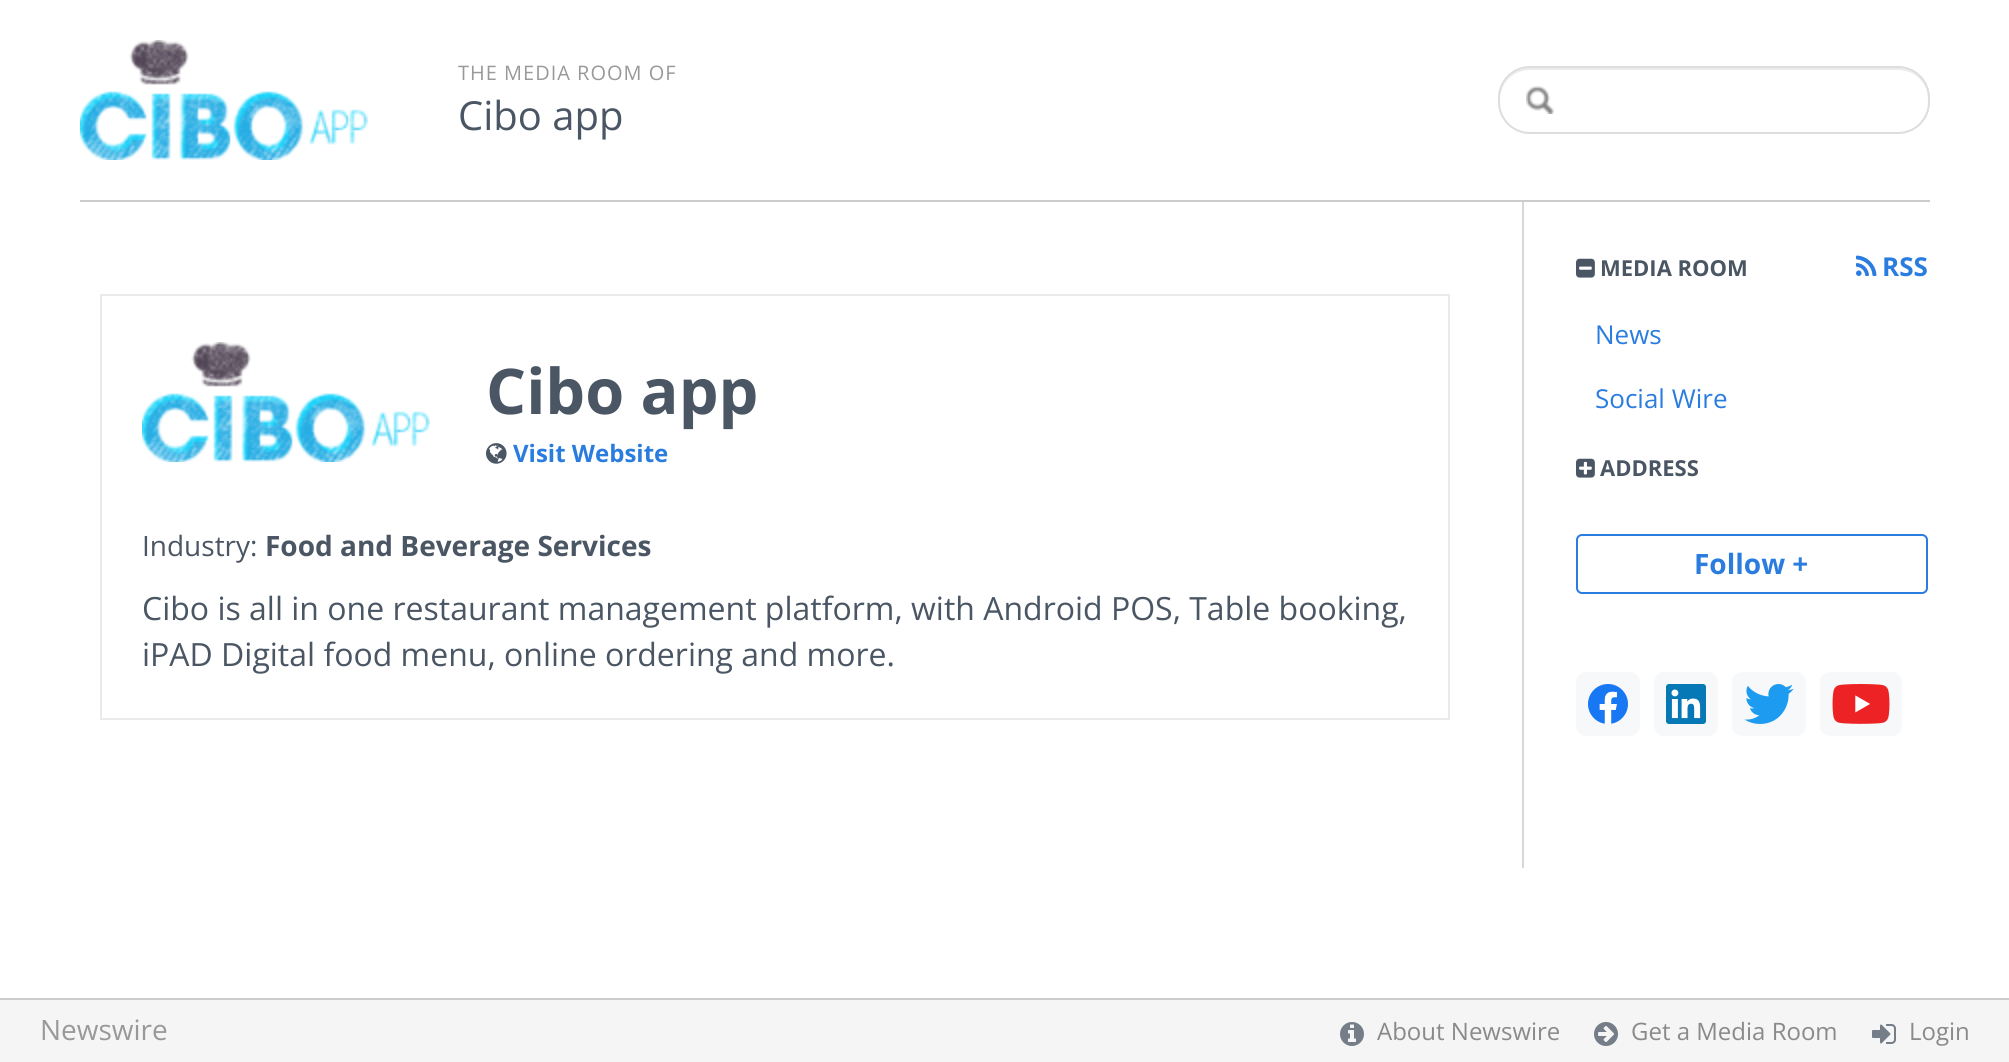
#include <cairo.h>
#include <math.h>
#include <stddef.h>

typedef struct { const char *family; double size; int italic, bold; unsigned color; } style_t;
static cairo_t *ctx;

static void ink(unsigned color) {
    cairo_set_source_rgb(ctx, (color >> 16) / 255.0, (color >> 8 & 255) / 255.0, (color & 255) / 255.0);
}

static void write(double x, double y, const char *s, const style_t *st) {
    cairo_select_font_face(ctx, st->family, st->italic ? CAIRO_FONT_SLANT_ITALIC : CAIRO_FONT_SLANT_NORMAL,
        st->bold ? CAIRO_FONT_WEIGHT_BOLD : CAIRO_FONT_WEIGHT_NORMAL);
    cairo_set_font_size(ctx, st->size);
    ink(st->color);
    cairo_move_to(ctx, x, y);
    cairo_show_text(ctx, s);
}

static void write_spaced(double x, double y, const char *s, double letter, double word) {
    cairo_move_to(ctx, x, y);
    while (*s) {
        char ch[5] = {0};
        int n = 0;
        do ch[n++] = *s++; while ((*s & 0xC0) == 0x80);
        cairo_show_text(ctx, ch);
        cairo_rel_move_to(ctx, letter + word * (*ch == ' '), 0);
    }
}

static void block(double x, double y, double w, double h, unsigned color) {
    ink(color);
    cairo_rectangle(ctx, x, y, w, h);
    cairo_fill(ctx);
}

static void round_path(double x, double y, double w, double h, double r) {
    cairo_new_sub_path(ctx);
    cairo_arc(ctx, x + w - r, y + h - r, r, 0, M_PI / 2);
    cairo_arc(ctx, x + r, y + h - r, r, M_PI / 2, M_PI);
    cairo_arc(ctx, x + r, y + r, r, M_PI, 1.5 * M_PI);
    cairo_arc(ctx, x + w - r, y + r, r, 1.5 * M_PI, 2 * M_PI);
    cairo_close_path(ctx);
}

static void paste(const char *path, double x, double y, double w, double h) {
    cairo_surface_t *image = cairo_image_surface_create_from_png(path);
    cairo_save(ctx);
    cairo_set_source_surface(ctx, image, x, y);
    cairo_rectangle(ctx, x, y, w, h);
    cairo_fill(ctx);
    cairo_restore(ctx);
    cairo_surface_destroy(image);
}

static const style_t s1 = {"Open Sans", 40, 0, 0, 0x4b5664};
static const style_t s2 = {"Open Sans", 63, 0, 1, 0x4b5664};
static const style_t s3 = {"Open Sans", 24, 0, 1, 0x2a7ddf};
static const style_t s4 = {"Open Sans", 28, 0, 0, 0x4b5664};
static const style_t s5 = {"Open Sans", 28, 0, 1, 0x4b5664};
static const style_t s6 = {"Open Sans", 32, 0, 0, 0x4b5664};
static const style_t s7 = {"Open Sans", 22, 0, 1, 0x4b5664};
static const style_t s8 = {"Open Sans", 26, 0, 1, 0x2a7ddf};
static const style_t s9 = {"Open Sans", 26, 0, 0, 0x2a7ddf};
static const style_t s10 = {"Open Sans", 28, 0, 1, 0x2a7ddf};
static const style_t s11 = {"Open Sans", 28, 0, 0, 0x999999};
static const style_t s12 = {"Open Sans", 24, 0, 0, 0x8a8a8a};

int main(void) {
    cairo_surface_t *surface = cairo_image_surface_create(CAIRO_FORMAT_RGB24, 2009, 1062);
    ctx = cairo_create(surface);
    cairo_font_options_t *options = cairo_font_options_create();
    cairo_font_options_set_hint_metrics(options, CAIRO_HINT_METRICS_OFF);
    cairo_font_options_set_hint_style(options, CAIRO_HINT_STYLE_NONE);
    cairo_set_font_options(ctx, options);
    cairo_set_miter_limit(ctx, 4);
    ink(0xffffff);
    cairo_paint(ctx);
    block(80, 200, 1850, 2, 0xcccccc);
    paste("pic1.png", 80, 40, 288, 120);
    cairo_select_font_face(ctx, "Open Sans", CAIRO_FONT_SLANT_NORMAL, CAIRO_FONT_WEIGHT_NORMAL);
    cairo_set_font_size(ctx, 20);
    ink(0x999999);
    write_spaced(458, 80, "THE MEDIA ROOM OF", 1, 0);
    write(458, 130, "Cibo app", &s1);
    ink(0xececec);
    cairo_new_path(ctx);
    cairo_move_to(ctx, 1530, 70);
    cairo_line_to(ctx, 1898, 70);
    cairo_curve_to(ctx, 1915, 70, 1928, 83, 1928, 100);
    cairo_line_to(ctx, 1928, 98);
    cairo_curve_to(ctx, 1928, 81, 1915, 68, 1898, 68);
    cairo_line_to(ctx, 1530, 68);
    cairo_curve_to(ctx, 1513, 68, 1500, 81, 1500, 98);
    cairo_line_to(ctx, 1500, 100);
    cairo_curve_to(ctx, 1500, 83, 1513, 70, 1530, 70);
    cairo_close_path(ctx);
    cairo_fill(ctx);
    round_path(1499, 67, 430, 66, 31);
    ink(0xdddddd);
    cairo_stroke(ctx);
    paste("pic2.png", 1526, 86, 28, 28);
    cairo_rectangle(ctx, 101, 295, 1348, 424);
    ink(0xeaeaea);
    cairo_stroke(ctx);
    paste("pic1.png", 142, 342, 288, 120);
    write(486, 414, "Cibo app", &s2);
    paste("pic3.png", 486, 443, 21, 21);
    write(513, 462, "Visit Website", &s3);
    write(142, 556, "Industry:", &s4);
    write(265, 556, "Food and Beverage Services", &s5);
    write(142, 620, "Cibo is all in one restaurant management platform, with Android POS, Table booking,", &s6);
    write(142, 666, "iPAD Digital food menu, online ordering and more.", &s6);
    block(1522, 202, 2, 666, 0xd3d8d9);
    paste("pic4.png", 1576, 258, 19, 20);
    write(1600, 276, "MEDIA ROOM", &s7);
    paste("pic5.png", 1856, 255, 21, 21);
    write(1882, 276, "RSS", &s8);
    write(1595, 344, "News", &s9);
    write(1595, 408, "Social Wire", &s9);
    paste("pic6.png", 1576, 458, 19, 20);
    write(1600, 476, "ADDRESS", &s7);
    round_path(1577, 535, 350, 58, 5);
    ink(0x2a7ddf);
    cairo_stroke(ctx);
    write(1694, 574, "Follow +", &s10);
    ink(0xf7f8fa);
    round_path(1576, 672, 64, 64, 10);
    cairo_fill(ctx);
    paste("pic7.png", 1588, 684, 40, 40);
    round_path(1654, 672, 64, 64, 10);
    cairo_fill(ctx);
    paste("pic8.png", 1666, 684, 40, 40);
    round_path(1732, 672, 74, 64, 10);
    cairo_fill(ctx);
    paste("pic9.png", 1744, 684, 50, 40);
    round_path(1820, 672, 82, 64, 10);
    cairo_fill(ctx);
    paste("pic10.png", 1832, 684, 58, 40);
    block(0, 1000, 2009, 62, 0xf5f5f5);
    block(0, 998, 2009, 2, 0xcccccc);
    write(40, 1040, "Newswire", &s11);
    paste("pic11.png", 1340, 1022, 24, 24);
    write(1377, 1040, "About Newswire", &s12);
    paste("pic12.png", 1594, 1022, 24, 24);
    write(1631, 1040, "Get a Media Room", &s12);
    paste("pic13.png", 1872, 1024, 24, 20);
    write(1909, 1040, "Login", &s12);
    cairo_surface_write_to_png(surface, "screenshot.png");
    cairo_font_options_destroy(options);
    cairo_destroy(ctx);
    cairo_surface_destroy(surface);
    return 0;
}
